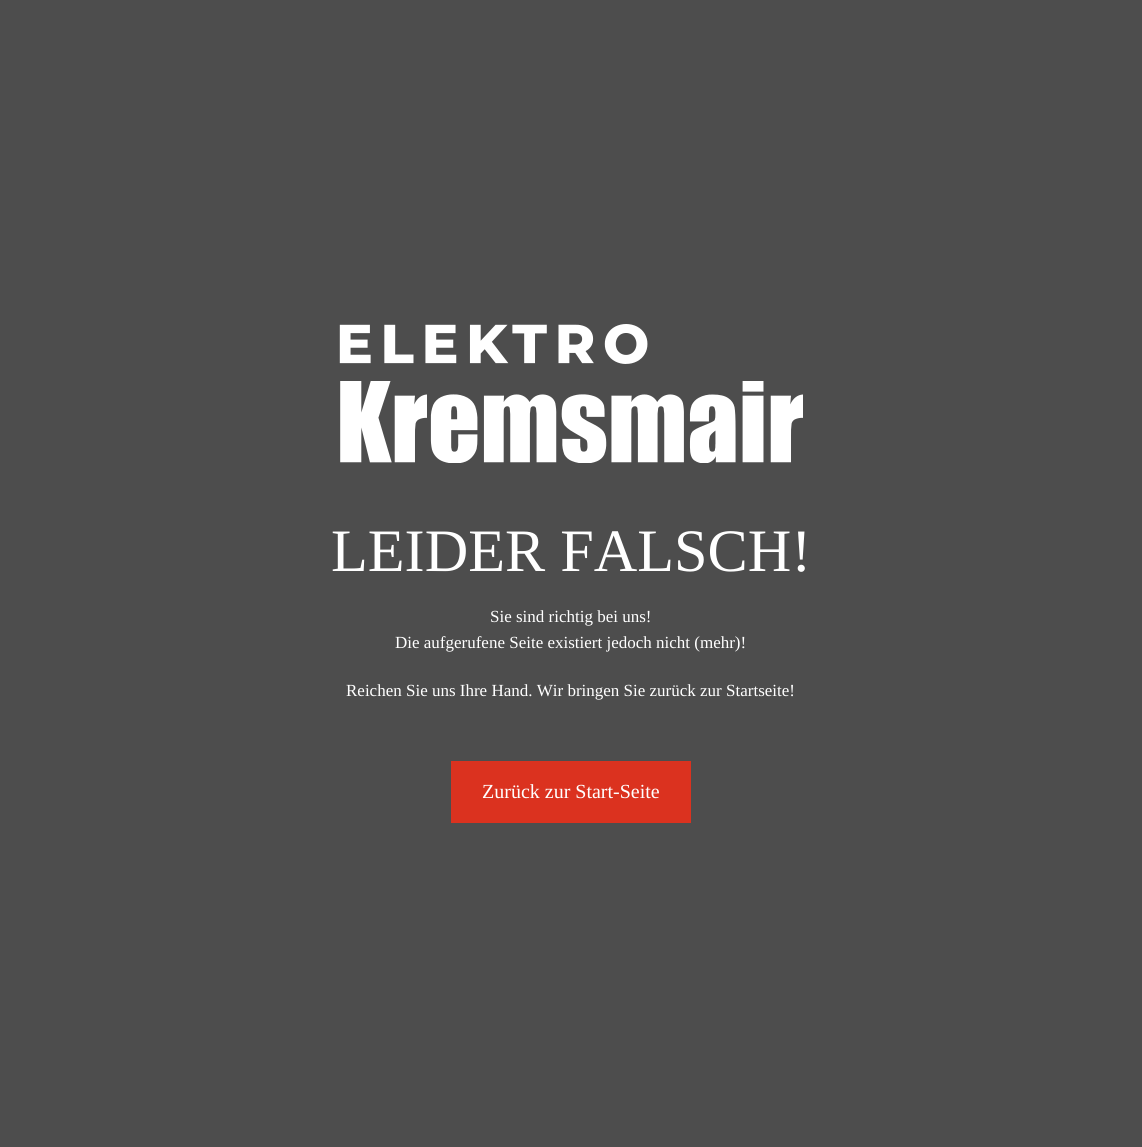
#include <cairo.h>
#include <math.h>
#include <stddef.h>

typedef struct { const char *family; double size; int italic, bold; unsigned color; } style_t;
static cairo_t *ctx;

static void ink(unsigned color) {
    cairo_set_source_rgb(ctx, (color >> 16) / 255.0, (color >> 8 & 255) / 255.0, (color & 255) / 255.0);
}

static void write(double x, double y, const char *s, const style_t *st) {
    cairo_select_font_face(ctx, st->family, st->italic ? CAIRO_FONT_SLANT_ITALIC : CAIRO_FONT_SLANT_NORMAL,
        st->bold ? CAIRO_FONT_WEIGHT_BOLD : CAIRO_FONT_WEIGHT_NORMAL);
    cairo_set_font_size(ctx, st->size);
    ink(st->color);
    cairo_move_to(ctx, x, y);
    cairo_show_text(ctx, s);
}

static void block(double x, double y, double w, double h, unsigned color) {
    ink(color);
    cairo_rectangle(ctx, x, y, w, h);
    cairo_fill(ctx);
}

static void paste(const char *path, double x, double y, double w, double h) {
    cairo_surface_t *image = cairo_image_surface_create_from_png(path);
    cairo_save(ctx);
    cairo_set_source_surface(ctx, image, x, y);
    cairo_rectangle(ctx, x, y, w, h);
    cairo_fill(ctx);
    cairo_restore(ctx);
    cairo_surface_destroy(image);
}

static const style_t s1 = {"Liberation Serif", 60.25, 0, 0, 0xffffff};
static const style_t s2 = {"Liberation Serif", 17, 0, 0, 0xffffff};
static const style_t s3 = {"Liberation Serif", 20, 0, 0, 0xffffff};

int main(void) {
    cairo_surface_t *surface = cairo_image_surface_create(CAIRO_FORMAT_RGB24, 1142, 1147);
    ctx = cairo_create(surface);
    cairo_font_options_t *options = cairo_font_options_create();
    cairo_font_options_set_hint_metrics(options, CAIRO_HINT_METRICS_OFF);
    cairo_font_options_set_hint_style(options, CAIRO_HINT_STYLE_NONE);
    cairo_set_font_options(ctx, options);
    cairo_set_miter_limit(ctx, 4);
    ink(0x4d4d4d);
    cairo_paint(ctx);
    paste("pic1.png", 339, 324, 464, 139);
    write(331, 571, "LEIDER FALSCH!", &s1);
    write(490, 622, "Sie sind richtig bei uns!", &s2);
    write(395, 648, "Die aufgerufene Seite existiert jedoch nicht (mehr)!", &s2);
    write(346, 696, "Reichen Sie uns Ihre Hand. Wir bringen Sie zurück zur Startseite!", &s2);
    block(451, 761, 240, 62, 0xdb321f);
    write(482, 798, "Zurück zur Start-Seite", &s3);
    cairo_surface_write_to_png(surface, "screenshot.png");
    cairo_font_options_destroy(options);
    cairo_destroy(ctx);
    cairo_surface_destroy(surface);
    return 0;
}
